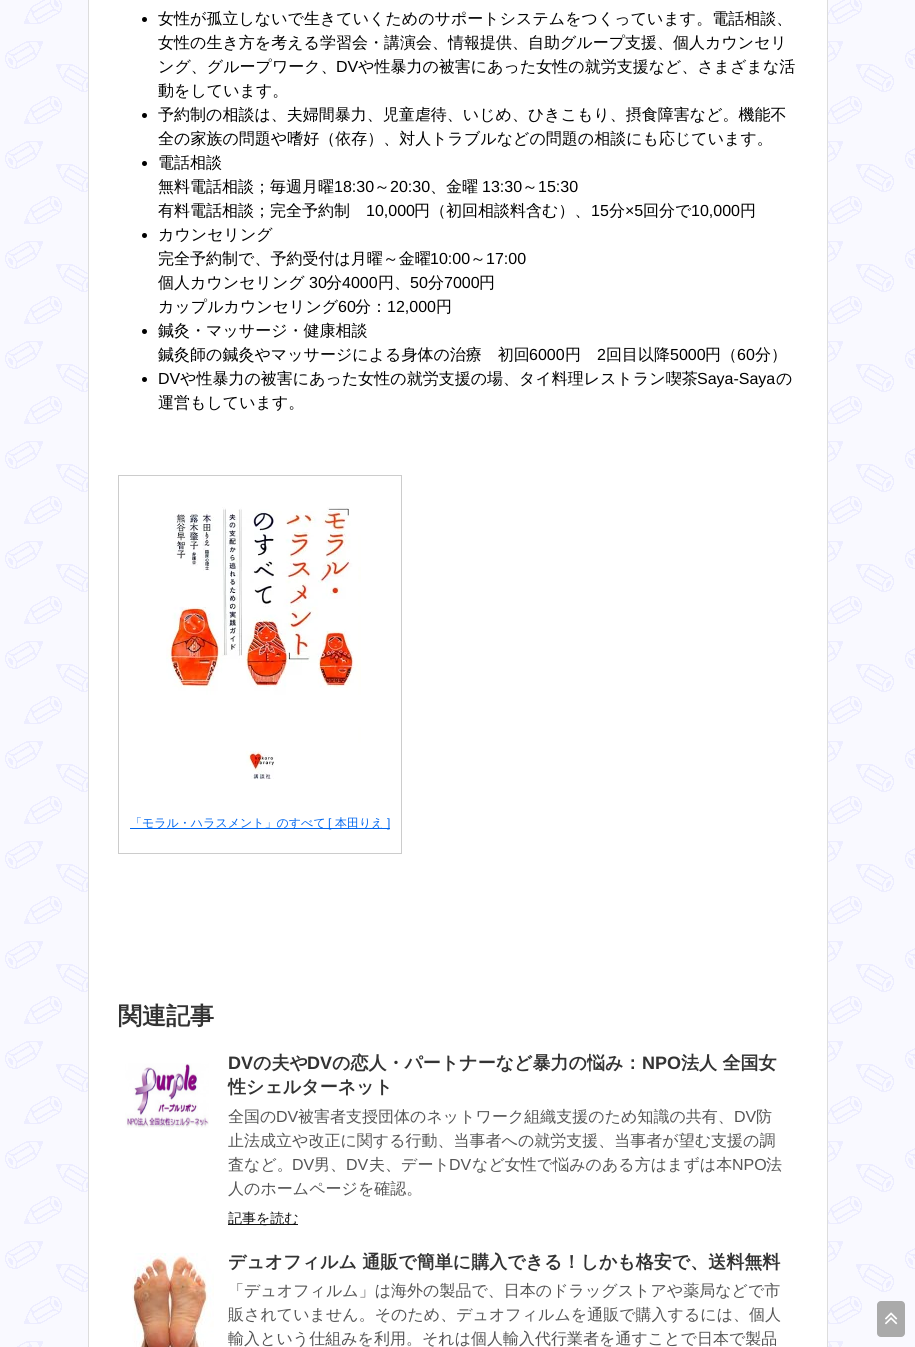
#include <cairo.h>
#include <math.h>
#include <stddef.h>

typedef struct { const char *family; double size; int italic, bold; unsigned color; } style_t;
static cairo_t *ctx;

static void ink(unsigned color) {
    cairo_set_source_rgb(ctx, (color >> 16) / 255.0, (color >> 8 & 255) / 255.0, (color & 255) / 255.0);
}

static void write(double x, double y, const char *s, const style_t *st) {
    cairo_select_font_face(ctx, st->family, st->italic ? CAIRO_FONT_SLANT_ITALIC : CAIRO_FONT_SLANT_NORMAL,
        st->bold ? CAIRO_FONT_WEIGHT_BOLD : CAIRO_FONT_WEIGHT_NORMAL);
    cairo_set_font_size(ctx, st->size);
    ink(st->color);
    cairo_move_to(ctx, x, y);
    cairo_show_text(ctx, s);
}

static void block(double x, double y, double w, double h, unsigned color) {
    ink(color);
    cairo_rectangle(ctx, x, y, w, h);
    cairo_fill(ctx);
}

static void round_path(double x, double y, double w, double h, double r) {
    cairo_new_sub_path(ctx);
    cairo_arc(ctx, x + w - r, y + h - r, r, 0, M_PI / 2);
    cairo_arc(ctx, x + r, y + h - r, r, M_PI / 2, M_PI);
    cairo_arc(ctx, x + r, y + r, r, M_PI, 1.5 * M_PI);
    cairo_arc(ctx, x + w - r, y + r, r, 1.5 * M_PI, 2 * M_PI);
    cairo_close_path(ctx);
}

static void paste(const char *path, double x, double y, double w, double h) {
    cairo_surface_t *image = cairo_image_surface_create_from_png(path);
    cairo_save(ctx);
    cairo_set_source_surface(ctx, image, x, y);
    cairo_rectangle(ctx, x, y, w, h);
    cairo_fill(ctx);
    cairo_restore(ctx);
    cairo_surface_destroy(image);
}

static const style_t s1 = {"WenQuanYi Zen Hei Medium", 16, 0, 0, 0x000000};
static const style_t s2 = {"Liberation Sans", 16, 0, 0, 0x000000};
static const style_t s3 = {"WenQuanYi Zen Hei Medium", 12, 0, 0, 0x0066ee};
static const style_t s4 = {"Liberation Sans", 12, 0, 0, 0x0066ee};
static const style_t s5 = {"WenQuanYi Zen Hei", 24, 0, 1, 0x333333};
static const style_t s6 = {"Liberation Sans", 18, 0, 1, 0x333333};
static const style_t s7 = {"WenQuanYi Zen Hei", 18, 0, 1, 0x333333};
static const style_t s8 = {"WenQuanYi Zen Hei Medium", 16, 0, 0, 0x555555};
static const style_t s9 = {"Liberation Sans", 16, 0, 0, 0x555555};
static const style_t s10 = {"WenQuanYi Zen Hei Medium", 14, 0, 0, 0x111111};

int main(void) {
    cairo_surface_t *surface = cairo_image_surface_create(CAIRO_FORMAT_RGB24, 915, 1347);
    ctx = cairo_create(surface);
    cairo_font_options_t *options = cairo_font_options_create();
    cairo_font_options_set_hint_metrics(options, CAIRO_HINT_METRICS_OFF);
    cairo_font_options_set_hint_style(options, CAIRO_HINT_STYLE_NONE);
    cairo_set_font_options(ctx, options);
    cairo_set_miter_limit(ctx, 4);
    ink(0xffffff);
    cairo_paint(ctx);
    paste("pic1.png", 0, 0, 915, 1347);
    ink(0xffffff);
    cairo_rectangle(ctx, 88.5, -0.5, 739, 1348);
    cairo_fill_preserve(ctx);
    ink(0xdddddd);
    cairo_set_line_width(ctx, 1);
    cairo_stroke(ctx);
    ink(0x000000);
    cairo_arc(ctx, 144.5, 19.5, 2.5, 0, 2 * M_PI);
    cairo_fill(ctx);
    write(158, 24, "女性が孤立しないで生きていくためのサポートシステムをつくっています。電話相談、", &s1);
    write(158, 48, "女性の生き方を考える学習会・講演会、情報提供、自助グループ支援、個人カウンセリ", &s1);
    write(158, 72, "ング、グループワーク、", &s1);
    write(336, 72, "DV", &s2);
    write(358, 72, "や性暴力の被害にあった女性の就労支援など、さまざまな活", &s1);
    write(158, 96, "動をしています。", &s1);
    cairo_new_path(ctx);
    cairo_arc(ctx, 144.5, 115.5, 2.5, 0, 2 * M_PI);
    cairo_fill(ctx);
    write(158, 120, "予約制の相談は、夫婦間暴力、児童虐待、いじめ、ひきこもり、摂食障害など。機能不", &s1);
    write(158, 144, "全の家族の問題や嗜好（依存）、対人トラブルなどの問題の相談にも応じています。", &s1);
    cairo_new_path(ctx);
    cairo_arc(ctx, 144.5, 163.5, 2.5, 0, 2 * M_PI);
    cairo_fill(ctx);
    write(158, 168, "電話相談", &s1);
    write(158, 192, "無料電話相談；毎週月曜", &s1);
    write(334, 192, "18:30", &s2);
    write(374, 192, "～", &s1);
    write(390, 192, "20:30", &s2);
    write(430, 192, "、金曜", &s1);
    write(482, 192, "13:30", &s2);
    write(522, 192, "～", &s1);
    write(538, 192, "15:30", &s2);
    write(158, 216, "有料電話相談；完全予約制", &s1);
    write(366, 216, "10,000", &s2);
    write(414, 216, "円（初回相談料含む）、", &s1);
    write(591, 216, "15", &s2);
    write(609, 216, "分", &s1);
    write(625, 216, "×5", &s2);
    write(643, 216, "回分で", &s1);
    write(691, 216, "10,000", &s2);
    write(740, 216, "円", &s1);
    cairo_new_path(ctx);
    cairo_arc(ctx, 144.5, 235.5, 2.5, 0, 2 * M_PI);
    cairo_fill(ctx);
    write(158, 240, "カウンセリング", &s1);
    write(158, 264, "完全予約制で、予約受付は月曜～金曜", &s1);
    write(430, 264, "10:00", &s2);
    write(470, 264, "～", &s1);
    write(486, 264, "17:00", &s2);
    write(158, 288, "個人カウンセリング", &s1);
    write(309, 288, "30", &s2);
    write(326, 288, "分", &s1);
    write(342, 288, "4000", &s2);
    write(378, 288, "円、", &s1);
    write(410, 288, "50", &s2);
    write(428, 288, "分", &s1);
    write(444, 288, "7000", &s2);
    write(479, 288, "円", &s1);
    write(158, 312, "カップルカウンセリング", &s1);
    write(338, 312, "60", &s2);
    write(355, 312, "分：", &s1);
    write(387, 312, "12,000", &s2);
    write(436, 312, "円", &s1);
    cairo_new_path(ctx);
    cairo_arc(ctx, 144.5, 331.5, 2.5, 0, 2 * M_PI);
    cairo_fill(ctx);
    write(158, 336, "鍼灸・マッサージ・健康相談", &s1);
    write(158, 360, "鍼灸師の鍼灸やマッサージによる身体の治療　初回", &s1);
    write(529, 360, "6000", &s2);
    write(565, 360, "円", &s1);
    write(597, 360, "2", &s2);
    write(606, 360, "回目以降", &s1);
    write(670, 360, "5000", &s2);
    write(705, 360, "円（", &s1);
    write(737, 360, "60", &s2);
    write(755, 360, "分）", &s1);
    cairo_new_path(ctx);
    cairo_arc(ctx, 144.5, 379.5, 2.5, 0, 2 * M_PI);
    cairo_fill(ctx);
    write(158, 384, "DV", &s2);
    write(180, 384, "や性暴力の被害にあった女性の就労支援の場、タイ料理レストラン喫茶", &s1);
    write(697, 384, "Saya-Saya", &s2);
    write(776, 384, "の", &s1);
    write(158, 408, "運営もしています。", &s1);
    block(118, 475, 284, 1, 0xcccccc);
    block(401, 475, 1, 379, 0xcccccc);
    block(118, 853, 284, 1, 0xcccccc);
    block(118, 475, 1, 379, 0xcccccc);
    paste("pic2.png", 166, 507, 195, 272);
    block(130, 828, 260, 1, 0x0066ee);
    write(130, 827, "「モラル・ハラスメント」のすべて", &s3);
    write(328, 827, "[", &s4);
    write(335, 827, "本田りえ", &s3);
    write(387, 827, "]", &s4);
    write(118, 1024, "関連記事", &s5);
    paste("pic3.png", 125, 1063, 84, 65);
    write(228, 1069, "DV", &s6);
    write(253, 1069, "の夫や", &s7);
    write(307, 1069, "DV", &s6);
    write(332, 1069, "の恋人・パートナーなど暴力の悩み：", &s7);
    write(642, 1069, "NPO", &s6);
    write(681, 1069, "法人 全国女", &s7);
    write(228, 1093, "性シェルターネット", &s7);
    write(228, 1122, "全国の", &s8);
    write(276, 1122, "DV", &s9);
    write(298, 1122, "被害者支授団体のネットワーク組織支援のため知識の共有、", &s8);
    write(734, 1122, "DV", &s9);
    write(756, 1122, "防", &s8);
    write(228, 1146, "止法成立や改正に関する行動、当事者への就労支援、当事者が望む支援の調", &s8);
    write(228, 1170, "査など。", &s8);
    write(292, 1170, "DV", &s9);
    write(314, 1170, "男、", &s8);
    write(346, 1170, "DV", &s9);
    write(369, 1170, "夫、デート", &s8);
    write(449, 1170, "DV", &s9);
    write(472, 1170, "など女性で悩みのある方はまずは本", &s8);
    write(732, 1170, "NPO", &s9);
    write(766, 1170, "法", &s8);
    write(228, 1194, "人のホームページを確認。", &s8);
    block(228, 1224, 70, 1, 0x111111);
    write(228, 1223, "記事を読む", &s10);
    paste("pic4.png", 132, 1253, 82, 94);
    write(228, 1268, "デュオフィルム 通販で簡単に購入できる！しかも格安で、送料無料", &s7);
    write(228, 1296, "「デュオフィルム」は海外の製品で、日本のドラッグストアや薬局などで市", &s8);
    write(228, 1320, "販されていません。そのため、デュオフィルムを通販で購入するには、個人", &s8);
    write(228, 1344, "輸入という仕組みを利用。それは個人輸入代行業者を通すことで日本で製品", &s8);
    ink(0xaaaaaa);
    round_path(877, 1301, 28, 36, 4);
    cairo_fill(ctx);
    paste("pic5.png", 885, 1312, 13, 13);
    cairo_surface_write_to_png(surface, "screenshot.png");
    cairo_font_options_destroy(options);
    cairo_destroy(ctx);
    cairo_surface_destroy(surface);
    return 0;
}
